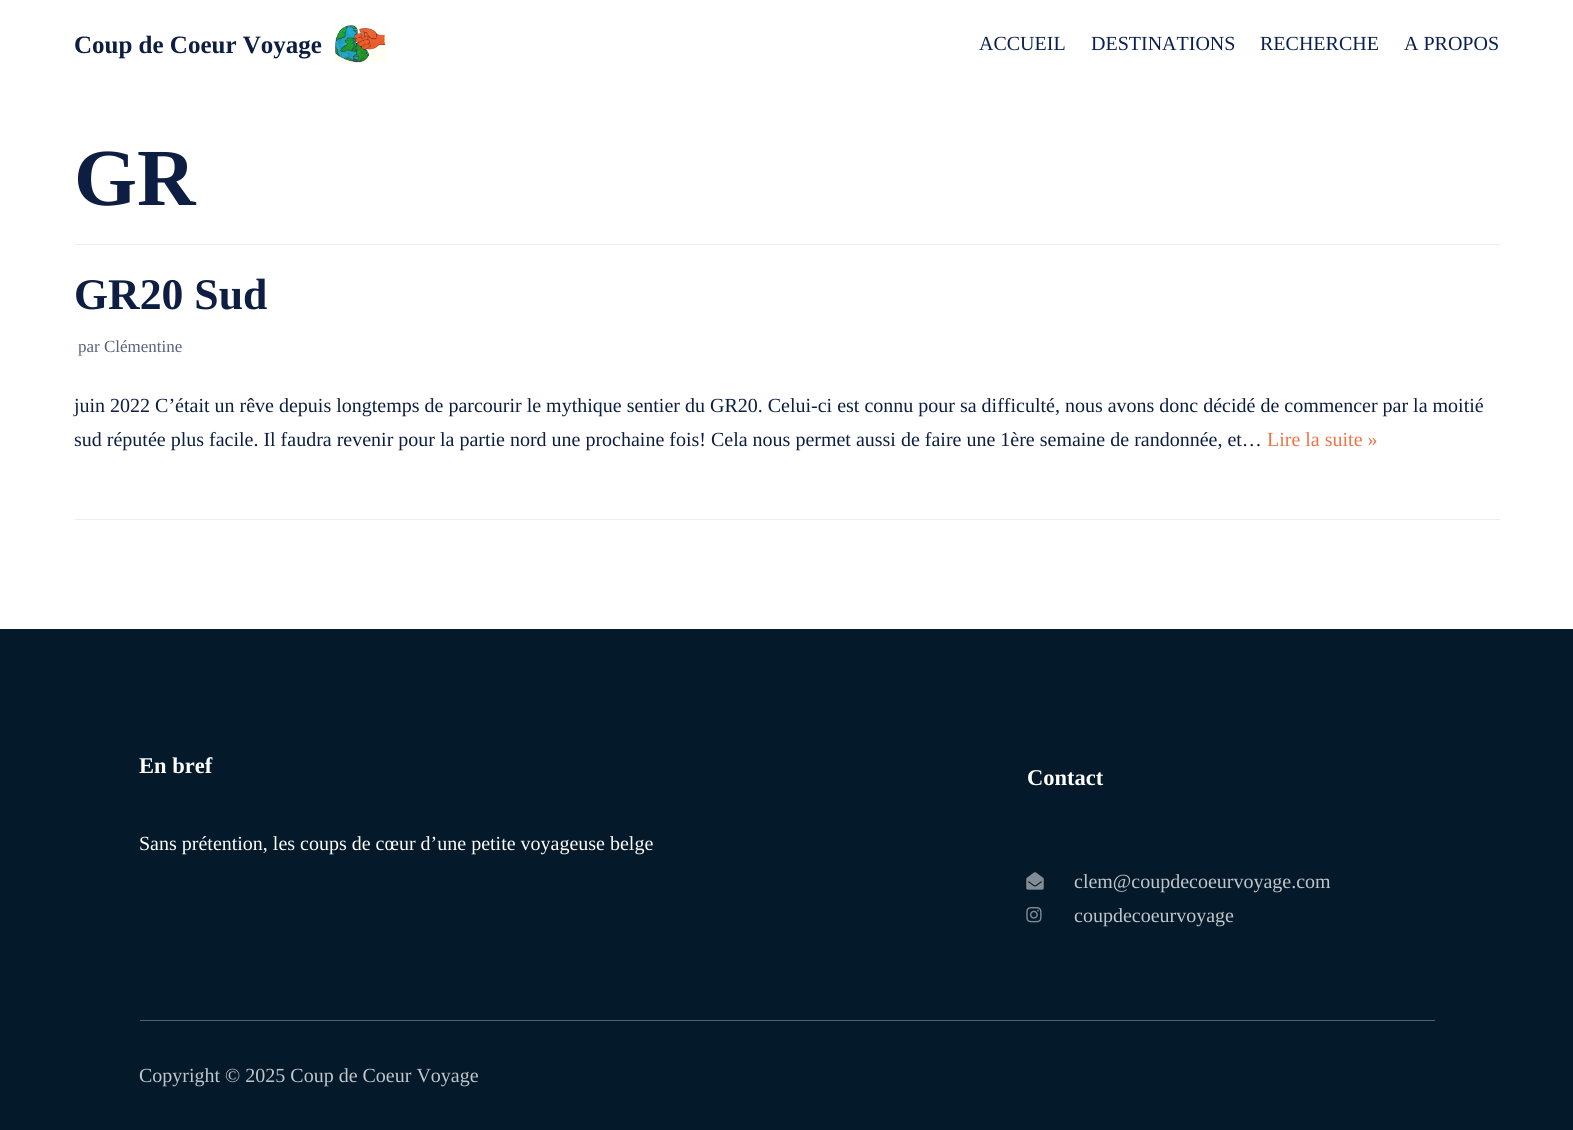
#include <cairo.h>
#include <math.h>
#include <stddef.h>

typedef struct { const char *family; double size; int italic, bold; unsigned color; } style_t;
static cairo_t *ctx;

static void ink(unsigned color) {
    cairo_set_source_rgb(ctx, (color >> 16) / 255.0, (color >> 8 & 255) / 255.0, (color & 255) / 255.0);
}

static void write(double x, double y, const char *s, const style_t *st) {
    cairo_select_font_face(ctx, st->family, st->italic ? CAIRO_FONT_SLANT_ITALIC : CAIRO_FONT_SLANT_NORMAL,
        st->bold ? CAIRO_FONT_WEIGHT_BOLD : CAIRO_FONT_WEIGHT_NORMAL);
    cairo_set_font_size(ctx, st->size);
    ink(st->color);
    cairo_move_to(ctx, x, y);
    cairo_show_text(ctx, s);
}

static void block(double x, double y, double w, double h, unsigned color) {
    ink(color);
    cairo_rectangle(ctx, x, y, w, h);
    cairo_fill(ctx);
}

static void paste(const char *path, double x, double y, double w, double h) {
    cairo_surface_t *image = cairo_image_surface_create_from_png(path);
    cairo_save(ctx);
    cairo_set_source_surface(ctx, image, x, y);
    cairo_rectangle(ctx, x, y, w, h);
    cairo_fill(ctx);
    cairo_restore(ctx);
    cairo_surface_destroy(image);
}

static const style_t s1 = {"Liberation Serif", 25, 0, 1, 0x0d1e42};
static const style_t s2 = {"Liberation Serif", 20, 0, 0, 0x0b204e};
static const style_t s3 = {"Liberation Serif", 81, 0, 1, 0x0d1e42};
static const style_t s4 = {"Liberation Serif", 43.75, 0, 1, 0x0d1e42};
static const style_t s5 = {"Liberation Serif", 17, 0, 0, 0x56627b};
static const style_t s6 = {"Liberation Serif", 20, 0, 0, 0x0d1e42};
static const style_t s7 = {"Liberation Serif", 20, 0, 0, 0xef7445};
static const style_t s8 = {"Liberation Serif", 22.5, 0, 1, 0xffffff};
static const style_t s9 = {"Liberation Serif", 20, 0, 0, 0xffffff};
static const style_t s10 = {"Liberation Serif", 20, 0, 0, 0xc0c6ca};

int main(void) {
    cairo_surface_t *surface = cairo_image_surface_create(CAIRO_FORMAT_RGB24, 1573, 1130);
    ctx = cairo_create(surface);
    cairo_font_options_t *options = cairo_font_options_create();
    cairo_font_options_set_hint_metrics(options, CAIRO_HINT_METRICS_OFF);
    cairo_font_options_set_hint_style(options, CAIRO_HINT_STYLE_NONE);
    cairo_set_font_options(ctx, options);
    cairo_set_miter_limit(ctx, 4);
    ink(0xffffff);
    cairo_paint(ctx);
    write(74, 53, "Coup de Coeur Voyage", &s1);
    paste("pic1.png", 335, 25, 55, 38);
    write(979, 50, "ACCUEIL", &s2);
    write(1091, 50, "DESTINATIONS", &s2);
    write(1260, 50, "RECHERCHE", &s2);
    write(1404, 50, "A PROPOS", &s2);
    block(75, 244, 1425, 1, 0xededed);
    write(74, 205, "GR", &s3);
    block(75, 519, 1425, 1, 0xededed);
    write(74, 309, "GR20 Sud", &s4);
    write(78, 352, "par Clémentine", &s5);
    write(74, 412, "juin 2022 C’était un rêve depuis longtemps de parcourir le mythique sentier du GR20. Celui-ci est connu pour sa difficulté, nous avons donc décidé de commencer par la moitié", &s6);
    write(74, 446, "sud réputée plus facile. Il faudra revenir pour la partie nord une prochaine fois! Cela nous permet aussi de faire une 1ère semaine de randonnée, et…", &s6);
    write(1267, 446, "Lire la suite »", &s7);
    block(0, 629, 1573, 501, 0x04192a);
    write(139, 773, "En bref", &s8);
    write(139, 850, "Sans prétention, les coups de cœur d’une petite voyageuse belge", &s9);
    write(1027, 785, "Contact", &s8);
    paste("pic2.png", 1026, 872, 18, 18);
    write(1074, 888, "clem@coupdecoeurvoyage.com", &s10);
    paste("pic3.png", 1026, 907, 16, 16);
    write(1074, 922, "coupdecoeurvoyage", &s10);
    block(140, 1020, 1295, 1, 0x52606c);
    write(139, 1082, "Copyright © 2025 Coup de Coeur Voyage", &s10);
    cairo_surface_write_to_png(surface, "screenshot.png");
    cairo_font_options_destroy(options);
    cairo_destroy(ctx);
    cairo_surface_destroy(surface);
    return 0;
}
